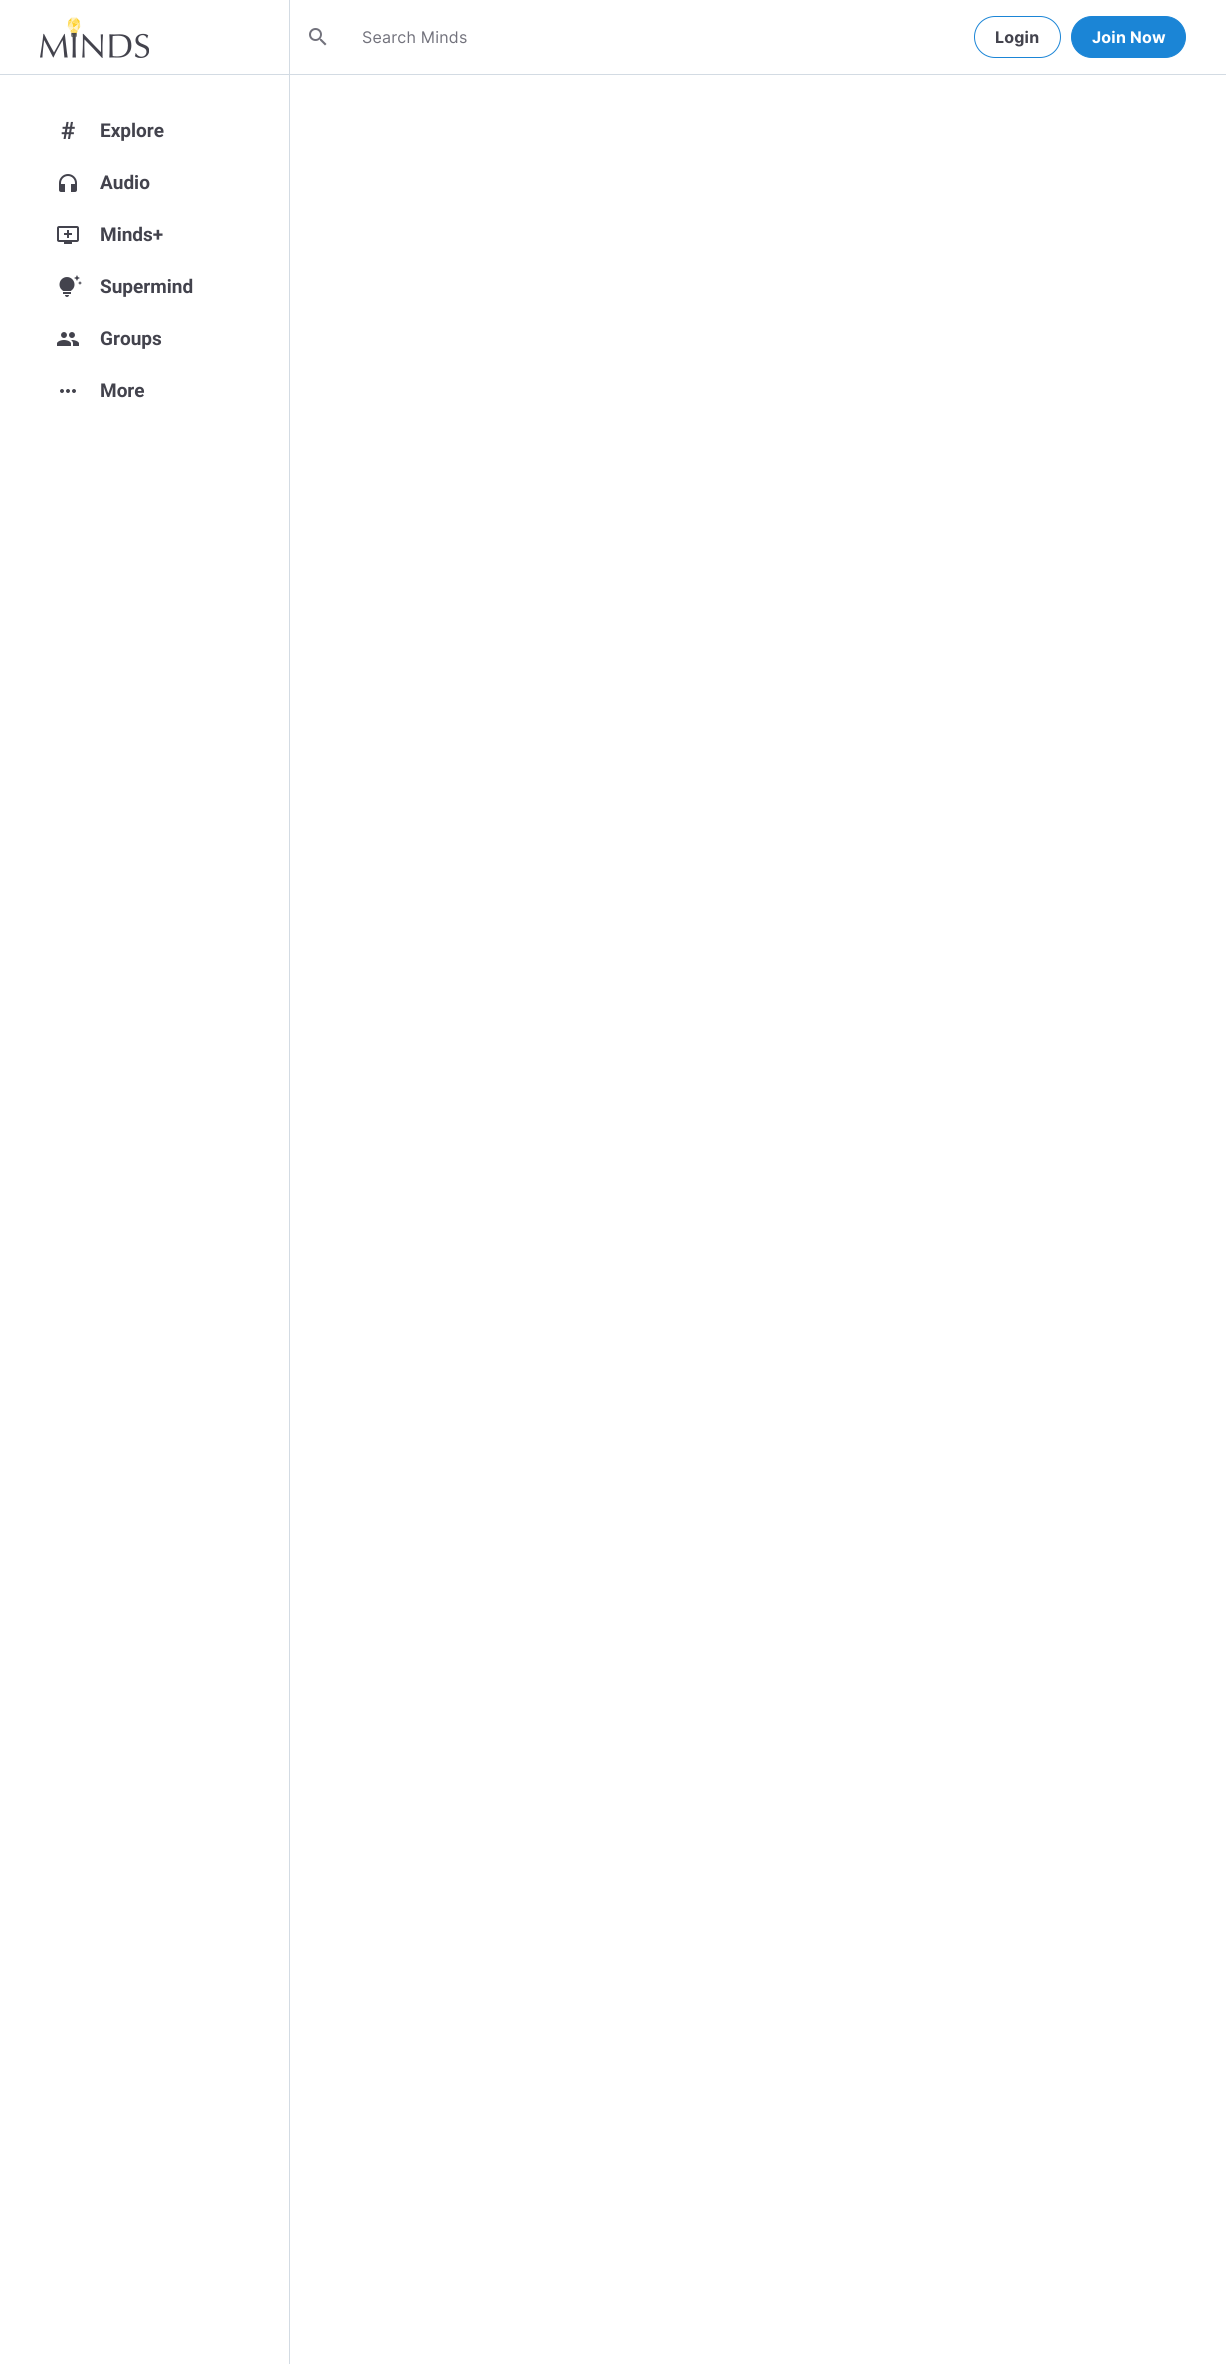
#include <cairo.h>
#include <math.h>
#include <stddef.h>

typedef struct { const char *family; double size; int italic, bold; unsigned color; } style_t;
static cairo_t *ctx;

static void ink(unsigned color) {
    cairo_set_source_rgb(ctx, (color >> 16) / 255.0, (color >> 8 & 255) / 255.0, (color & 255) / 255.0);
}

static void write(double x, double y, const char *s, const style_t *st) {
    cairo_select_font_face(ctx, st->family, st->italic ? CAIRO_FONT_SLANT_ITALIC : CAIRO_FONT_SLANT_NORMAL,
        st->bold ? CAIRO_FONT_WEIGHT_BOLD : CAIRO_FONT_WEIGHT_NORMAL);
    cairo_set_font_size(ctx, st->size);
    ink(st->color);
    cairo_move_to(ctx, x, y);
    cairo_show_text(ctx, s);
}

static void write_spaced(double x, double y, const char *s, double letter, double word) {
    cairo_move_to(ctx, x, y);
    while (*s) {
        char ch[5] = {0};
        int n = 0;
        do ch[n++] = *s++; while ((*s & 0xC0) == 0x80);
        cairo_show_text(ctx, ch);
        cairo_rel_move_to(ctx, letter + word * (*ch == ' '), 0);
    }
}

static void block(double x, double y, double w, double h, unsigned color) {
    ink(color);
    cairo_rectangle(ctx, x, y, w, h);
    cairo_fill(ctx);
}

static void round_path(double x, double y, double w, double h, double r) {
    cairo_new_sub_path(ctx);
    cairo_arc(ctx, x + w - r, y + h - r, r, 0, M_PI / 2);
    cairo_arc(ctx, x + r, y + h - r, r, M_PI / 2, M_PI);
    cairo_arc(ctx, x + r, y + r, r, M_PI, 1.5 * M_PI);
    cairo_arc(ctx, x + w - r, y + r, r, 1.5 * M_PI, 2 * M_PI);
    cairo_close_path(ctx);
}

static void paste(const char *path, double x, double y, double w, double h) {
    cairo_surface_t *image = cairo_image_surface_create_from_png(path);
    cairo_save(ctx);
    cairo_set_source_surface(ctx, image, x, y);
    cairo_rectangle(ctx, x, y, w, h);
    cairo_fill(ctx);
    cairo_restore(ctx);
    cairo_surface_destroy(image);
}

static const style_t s1 = {"Roboto", 24, 0, 1, 0x43434d};
static const style_t s2 = {"Roboto", 19, 0, 1, 0x43434d};

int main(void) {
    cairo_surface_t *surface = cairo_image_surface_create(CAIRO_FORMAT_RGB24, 1226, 2364);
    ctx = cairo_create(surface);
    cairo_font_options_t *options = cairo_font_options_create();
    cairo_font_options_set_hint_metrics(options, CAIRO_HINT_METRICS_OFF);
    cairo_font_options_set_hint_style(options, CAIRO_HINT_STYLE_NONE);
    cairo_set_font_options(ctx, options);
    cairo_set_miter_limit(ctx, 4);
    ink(0xffffff);
    cairo_paint(ctx);
    block(0, 74, 1226, 1, 0xd3dbe3);
    block(289, 0, 1, 74, 0xd3dbe3);
    paste("pic1.png", 40, 17, 109, 41);
    paste("pic2.png", 309, 28, 18, 18);
    cairo_select_font_face(ctx, "Inter", CAIRO_FONT_SLANT_NORMAL, CAIRO_FONT_WEIGHT_NORMAL);
    cairo_set_font_size(ctx, 16);
    ink(0x72727c);
    write_spaced(362, 43, "Search Minds", 0.2, 0);
    round_path(974.5, 16.5, 86, 41, 20.5);
    ink(0x1b85d6);
    cairo_set_line_width(ctx, 1);
    cairo_stroke(ctx);
    cairo_select_font_face(ctx, "Inter", CAIRO_FONT_SLANT_NORMAL, CAIRO_FONT_WEIGHT_BOLD);
    ink(0x43434d);
    write_spaced(995, 43, "Login", 0.2, 0);
    ink(0x1b85d6);
    round_path(1071.5, 16.5, 114, 41, 20.5);
    cairo_fill_preserve(ctx);
    cairo_stroke(ctx);
    ink(0xffffff);
    write_spaced(1092, 43, "Join Now", 0.2, 0);
    block(289, 75, 1, 2289, 0xd3dbe3);
    write(61, 139, "#", &s1);
    write(100, 137, "Explore", &s2);
    paste("pic3.png", 59, 174, 18, 18);
    write(100, 189, "Audio", &s2);
    paste("pic4.png", 57, 226, 22, 18);
    write(100, 241, "Minds+", &s2);
    paste("pic5.png", 59, 275, 23, 22);
    write(100, 293, "Supermind", &s2);
    paste("pic6.png", 57, 332, 22, 14);
    write(100, 345, "Groups", &s2);
    paste("pic7.png", 60, 389, 16, 4);
    write(100, 397, "More", &s2);
    cairo_surface_write_to_png(surface, "screenshot.png");
    cairo_font_options_destroy(options);
    cairo_destroy(ctx);
    cairo_surface_destroy(surface);
    return 0;
}
